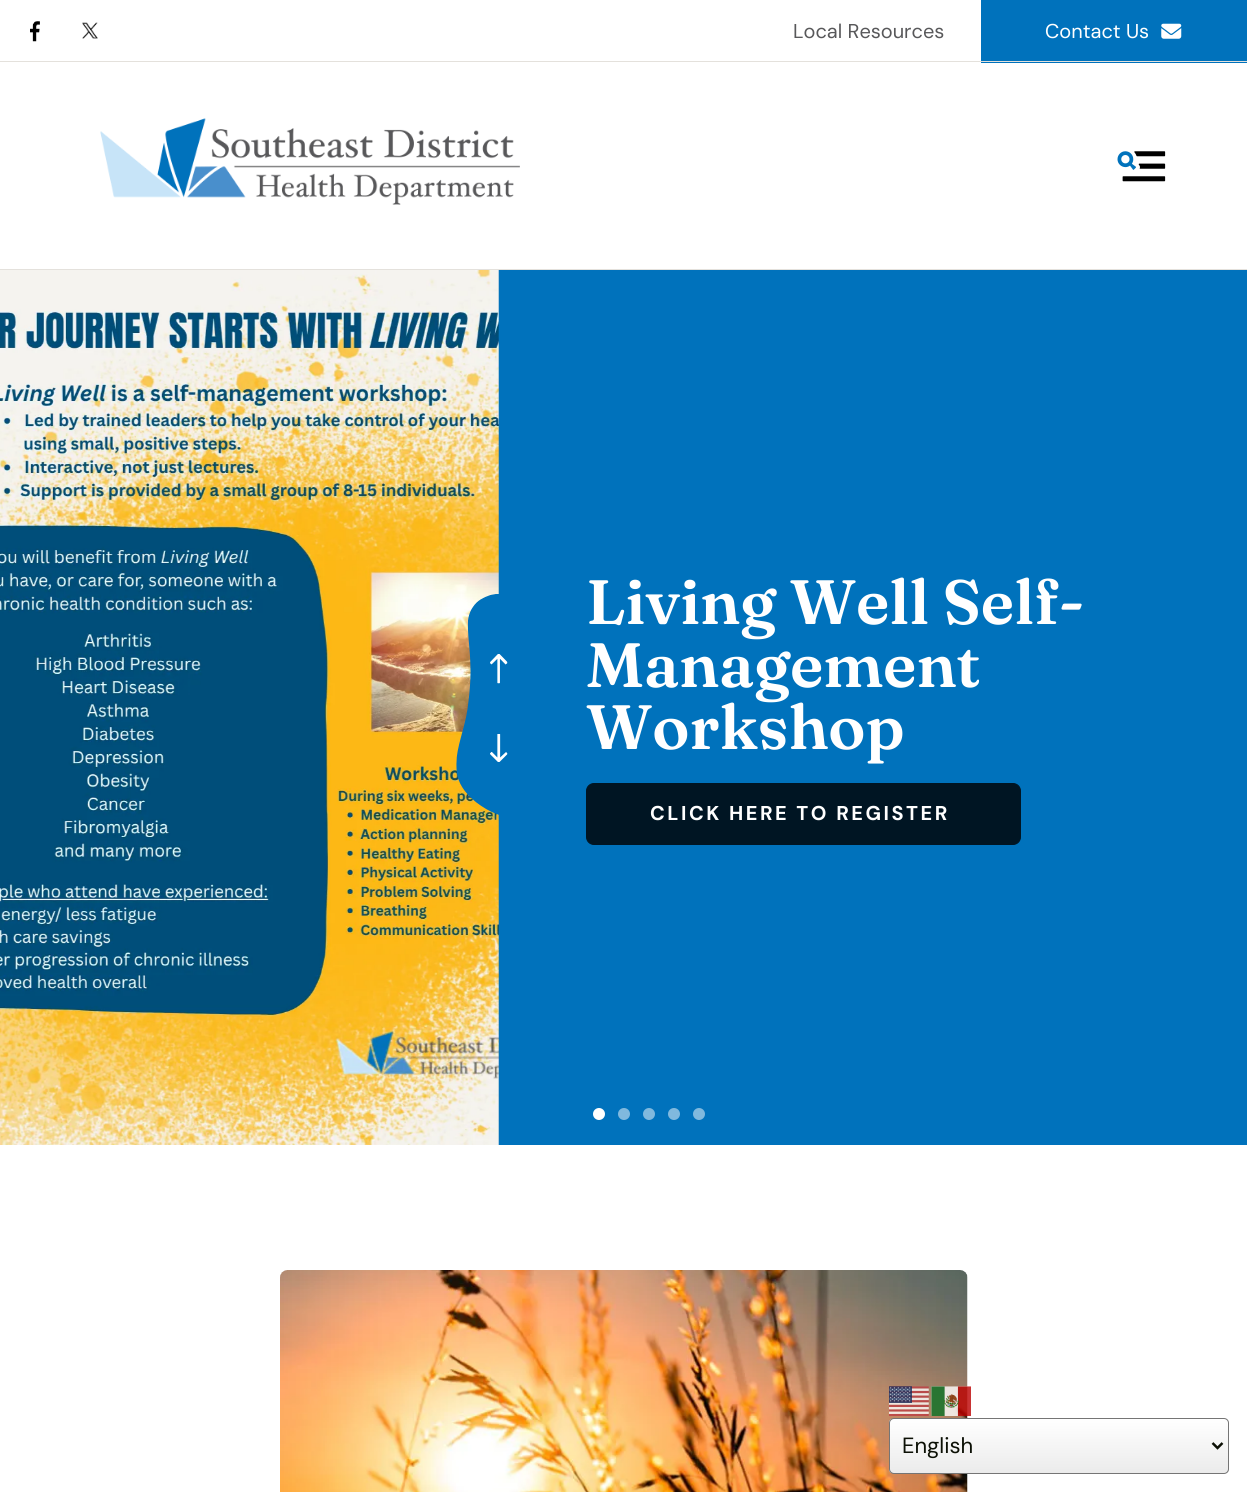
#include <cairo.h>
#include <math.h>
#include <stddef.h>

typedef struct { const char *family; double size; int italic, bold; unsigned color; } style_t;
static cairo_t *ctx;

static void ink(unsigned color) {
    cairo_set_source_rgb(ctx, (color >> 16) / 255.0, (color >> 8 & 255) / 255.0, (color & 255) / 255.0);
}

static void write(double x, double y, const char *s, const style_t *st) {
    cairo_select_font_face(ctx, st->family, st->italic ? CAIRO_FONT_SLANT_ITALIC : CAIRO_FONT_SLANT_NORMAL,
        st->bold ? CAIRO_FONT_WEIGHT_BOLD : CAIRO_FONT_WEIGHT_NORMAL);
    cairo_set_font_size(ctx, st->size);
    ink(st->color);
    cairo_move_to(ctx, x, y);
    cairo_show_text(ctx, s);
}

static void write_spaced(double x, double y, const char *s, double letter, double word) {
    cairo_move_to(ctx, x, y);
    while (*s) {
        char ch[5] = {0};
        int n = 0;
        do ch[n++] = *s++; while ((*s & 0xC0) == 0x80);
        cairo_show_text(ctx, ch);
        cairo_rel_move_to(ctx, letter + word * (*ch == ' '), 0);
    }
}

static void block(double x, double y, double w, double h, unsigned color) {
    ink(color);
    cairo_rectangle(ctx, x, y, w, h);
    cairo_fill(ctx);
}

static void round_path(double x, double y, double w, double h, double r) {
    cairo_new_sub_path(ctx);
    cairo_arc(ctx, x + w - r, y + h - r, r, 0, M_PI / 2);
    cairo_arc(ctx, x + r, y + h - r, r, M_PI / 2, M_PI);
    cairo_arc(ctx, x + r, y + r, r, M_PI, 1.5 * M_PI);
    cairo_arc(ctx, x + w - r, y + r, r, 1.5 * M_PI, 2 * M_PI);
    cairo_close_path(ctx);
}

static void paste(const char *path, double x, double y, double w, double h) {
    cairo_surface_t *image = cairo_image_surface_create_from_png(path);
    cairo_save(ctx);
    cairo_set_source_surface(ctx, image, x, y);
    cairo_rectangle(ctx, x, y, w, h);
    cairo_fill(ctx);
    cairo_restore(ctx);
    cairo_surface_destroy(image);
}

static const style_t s1 = {"DM Sans", 20, 0, 0, 0x58585a};
static const style_t s2 = {"DM Sans", 20, 0, 0, 0xffffff};
static const style_t s3 = {"Fraunces SemiBold", 62.5, 0, 0, 0xffffff};
static const style_t s4 = {"DM Sans", 22, 0, 0, 0x0c1005};

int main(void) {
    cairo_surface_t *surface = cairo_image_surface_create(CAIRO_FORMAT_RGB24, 1247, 1492);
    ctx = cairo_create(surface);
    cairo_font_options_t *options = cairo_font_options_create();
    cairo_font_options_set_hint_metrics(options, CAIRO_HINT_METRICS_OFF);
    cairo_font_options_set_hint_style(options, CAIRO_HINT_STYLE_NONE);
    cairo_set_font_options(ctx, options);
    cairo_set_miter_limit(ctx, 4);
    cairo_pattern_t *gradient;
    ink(0xffffff);
    cairo_paint(ctx);
    block(0, 269, 1247, 1, 0xe4e1dc);
    paste("pic1.png", 30, 21, 10, 21);
    paste("pic2.png", 82, 22, 16, 17);
    write(793, 38, "Local Resources", &s1);
    block(981, 0, 266, 63, 0x0072bc);
    write(1045, 38, "Contact Us", &s2);
    paste("pic3.png", 1161, 23, 21, 16);
    block(0, 61, 1247, 1, 0xe4e1dc);
    paste("pic4.png", 100, 118, 420, 87);
    paste("pic5.png", 1117, 151, 49, 31);
    block(498, 270, 749, 875, 0x0072bc);
    paste("pic9.png", 0, 270, 499, 875);
    paste("pic6.png", 456, 594, 43, 221);
    paste("pic7.png", 490, 654, 18, 30);
    paste("pic8.png", 490, 734, 18, 28);
    ink(0xffffff);
    cairo_arc(ctx, 599, 1114, 6, 0, 2 * M_PI);
    cairo_fill(ctx);
    ink(0x80b9de);
    cairo_arc(ctx, 624, 1114, 6, 0, 2 * M_PI);
    cairo_fill(ctx);
    cairo_arc(ctx, 649, 1114, 6, 0, 2 * M_PI);
    cairo_fill(ctx);
    cairo_arc(ctx, 674, 1114, 6, 0, 2 * M_PI);
    cairo_fill(ctx);
    cairo_arc(ctx, 699, 1114, 6, 0, 2 * M_PI);
    cairo_fill(ctx);
    write(586, 624, "Living Well Self-", &s3);
    write(586, 687, "Management", &s3);
    write(586, 749, "Workshop", &s3);
    ink(0x001523);
    round_path(586.5, 783.5, 434, 61, 7.5);
    cairo_fill_preserve(ctx);
    cairo_set_line_width(ctx, 1);
    cairo_stroke(ctx);
    cairo_select_font_face(ctx, "DM Sans", CAIRO_FONT_SLANT_NORMAL, CAIRO_FONT_WEIGHT_BOLD);
    cairo_set_font_size(ctx, 20);
    ink(0xffffff);
    write_spaced(650, 820, "CLICK HERE TO REGISTER", 2.5, 0);
    paste("pic10.png", 280, 1270, 688, 222);
    paste("pic11.png", 889, 1386, 40, 30);
    paste("pic12.png", 931, 1386, 40, 30);
    cairo_save(ctx);
    round_path(889, 1418, 340, 56, 5);
    cairo_clip(ctx);
    gradient = cairo_pattern_create_linear(1059, 1419, 1059, 1473);
    cairo_pattern_add_color_stop_rgba(gradient, 0, 1, 1, 1, 1);
    cairo_pattern_add_color_stop_rgba(gradient, 1, 0.922, 0.922, 0.922, 1);
    cairo_set_source(ctx, gradient);
    cairo_pattern_destroy(gradient);
    cairo_rectangle(ctx, 889, 1419, 340, 54);
    cairo_fill(ctx);
    cairo_restore(ctx);
    round_path(889.5, 1418.5, 339, 55, 4.5);
    ink(0x757575);
    cairo_stroke(ctx);
    cairo_new_path(ctx);
    cairo_move_to(ctx, 1212.5, 1443);
    cairo_line_to(ctx, 1217.5, 1448);
    cairo_line_to(ctx, 1222.5, 1443);
    ink(0x0c1005);
    cairo_set_line_width(ctx, 2.5);
    cairo_stroke(ctx);
    write(902, 1453, "English", &s4);
    cairo_surface_write_to_png(surface, "screenshot.png");
    cairo_font_options_destroy(options);
    cairo_destroy(ctx);
    cairo_surface_destroy(surface);
    return 0;
}
